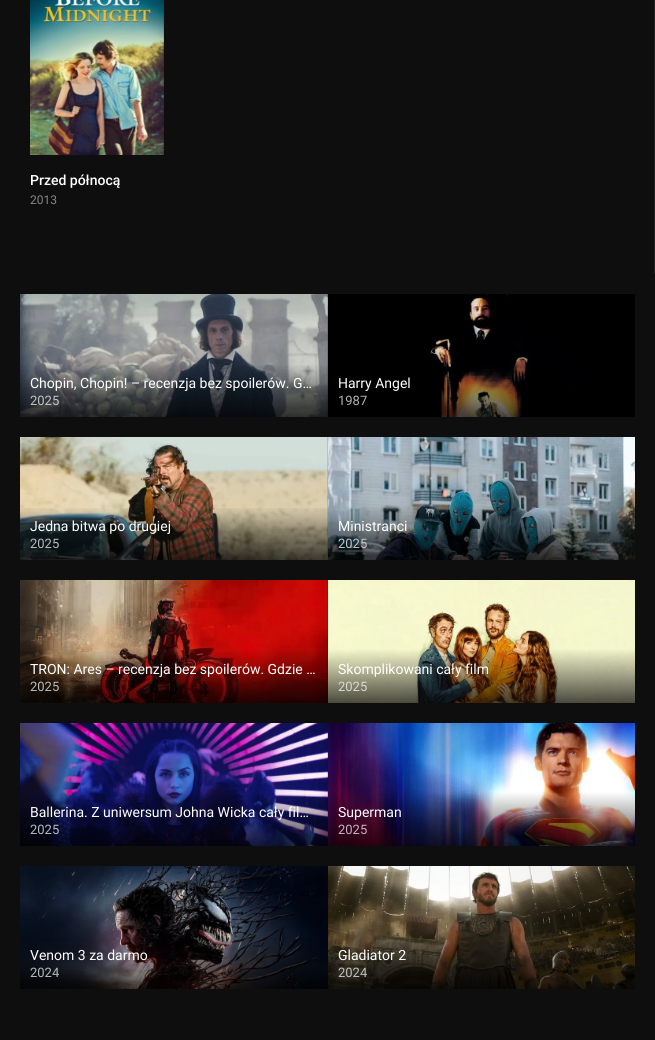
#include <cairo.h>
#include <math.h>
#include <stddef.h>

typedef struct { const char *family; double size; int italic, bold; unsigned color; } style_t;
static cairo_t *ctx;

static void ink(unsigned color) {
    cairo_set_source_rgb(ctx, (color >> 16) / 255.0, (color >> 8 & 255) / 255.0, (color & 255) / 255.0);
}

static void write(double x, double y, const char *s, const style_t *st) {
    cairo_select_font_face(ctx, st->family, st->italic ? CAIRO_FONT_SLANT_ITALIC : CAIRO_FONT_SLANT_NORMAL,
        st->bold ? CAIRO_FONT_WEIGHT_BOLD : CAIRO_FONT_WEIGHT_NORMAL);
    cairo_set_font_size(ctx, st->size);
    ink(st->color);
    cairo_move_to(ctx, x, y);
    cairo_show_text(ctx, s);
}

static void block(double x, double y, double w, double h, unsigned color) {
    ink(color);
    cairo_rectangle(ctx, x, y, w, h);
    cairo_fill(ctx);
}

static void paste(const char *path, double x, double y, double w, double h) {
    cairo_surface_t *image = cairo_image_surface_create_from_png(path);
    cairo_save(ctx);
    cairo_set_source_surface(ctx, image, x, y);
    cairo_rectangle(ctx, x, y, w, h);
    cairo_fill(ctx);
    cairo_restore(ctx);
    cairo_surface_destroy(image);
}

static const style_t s1 = {"Roboto Medium", 14, 0, 0, 0xffffff};
static const style_t s2 = {"Roboto", 12, 0, 0, 0x878787};
static const style_t s3 = {"Roboto", 14, 0, 0, 0xffffff};
static const style_t s4 = {"Roboto", 13, 0, 0, 0xc2c3c4};
static const style_t s5 = {"Roboto", 13, 0, 0, 0xb3b3b3};
static const style_t s6 = {"Roboto", 13, 0, 0, 0xb6b9ba};
static const style_t s7 = {"Roboto", 13, 0, 0, 0xd9d9d2};
static const style_t s8 = {"Roboto", 13, 0, 0, 0xc3b3bb};
static const style_t s9 = {"Roboto", 13, 0, 0, 0xc0bfbc};

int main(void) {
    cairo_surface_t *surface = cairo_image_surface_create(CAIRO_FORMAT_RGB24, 655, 1040);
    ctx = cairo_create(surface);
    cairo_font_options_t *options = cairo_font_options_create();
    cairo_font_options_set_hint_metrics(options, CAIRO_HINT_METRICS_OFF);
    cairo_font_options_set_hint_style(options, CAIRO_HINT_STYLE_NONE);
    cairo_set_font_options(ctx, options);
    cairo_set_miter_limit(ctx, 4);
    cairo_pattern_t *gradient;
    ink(0x0e0e0e);
    cairo_paint(ctx);
    block(654, 0, 1, 274, 0x212121);
    paste("pic1.png", 30, 0, 134, 155);
    write(30, 185, "Przed północą", &s1);
    write(30, 204, "2013", &s2);
    paste("pic2.png", 20, 294, 308, 123);
    gradient = cairo_pattern_create_linear(174, 363, 174, 417);
    cairo_pattern_add_color_stop_rgba(gradient, 0, 0, 0, 0, 0);
    cairo_pattern_add_color_stop_rgba(gradient, 1, 0, 0, 0, 0.7);
    cairo_set_source(ctx, gradient);
    cairo_pattern_destroy(gradient);
    cairo_rectangle(ctx, 20, 365, 308, 52);
    cairo_fill(ctx);
    write(30, 388, "Chopin, Chopin! – recenzja bez spoilerów. G…", &s3);
    write(30, 405, "2025", &s4);
    paste("pic3.png", 328, 294, 307, 123);
    write(338, 388, "Harry Angel", &s3);
    write(338, 405, "1987", &s5);
    paste("pic4.png", 20, 437, 308, 123);
    gradient = cairo_pattern_create_linear(174, 506, 174, 560);
    cairo_pattern_add_color_stop_rgba(gradient, 0, 0, 0, 0, 0);
    cairo_pattern_add_color_stop_rgba(gradient, 1, 0, 0, 0, 0.7);
    cairo_set_source(ctx, gradient);
    cairo_pattern_destroy(gradient);
    cairo_rectangle(ctx, 20, 508, 308, 52);
    cairo_fill(ctx);
    write(30, 531, "Jedna bitwa po drugiej", &s3);
    write(30, 548, "2025", &s6);
    paste("pic5.png", 328, 437, 307, 123);
    write(338, 531, "Ministranci", &s3);
    write(338, 548, "2025", &s4);
    paste("pic6.png", 20, 580, 308, 123);
    gradient = cairo_pattern_create_linear(174, 649, 174, 703);
    cairo_pattern_add_color_stop_rgba(gradient, 0, 0, 0, 0, 0);
    cairo_pattern_add_color_stop_rgba(gradient, 1, 0, 0, 0, 0.7);
    cairo_set_source(ctx, gradient);
    cairo_pattern_destroy(gradient);
    cairo_rectangle(ctx, 20, 651, 308, 52);
    cairo_fill(ctx);
    write(30, 674, "TRON: Ares – recenzja bez spoilerów. Gdzie …", &s3);
    write(30, 691, "2025", &s6);
    paste("pic7.png", 328, 580, 307, 123);
    write(338, 674, "Skomplikowani cały film", &s3);
    write(338, 691, "2025", &s7);
    paste("pic8.png", 20, 723, 308, 123);
    gradient = cairo_pattern_create_linear(174, 792, 174, 846);
    cairo_pattern_add_color_stop_rgba(gradient, 0, 0, 0, 0, 0);
    cairo_pattern_add_color_stop_rgba(gradient, 1, 0, 0, 0, 0.7);
    cairo_set_source(ctx, gradient);
    cairo_pattern_destroy(gradient);
    cairo_rectangle(ctx, 20, 794, 308, 52);
    cairo_fill(ctx);
    write(30, 817, "Ballerina. Z uniwersum Johna Wicka cały fil…", &s3);
    write(30, 834, "2025", &s6);
    paste("pic9.png", 328, 723, 307, 123);
    write(338, 817, "Superman", &s3);
    write(338, 834, "2025", &s8);
    paste("pic10.png", 20, 866, 308, 123);
    gradient = cairo_pattern_create_linear(174, 935, 174, 989);
    cairo_pattern_add_color_stop_rgba(gradient, 0, 0, 0, 0, 0);
    cairo_pattern_add_color_stop_rgba(gradient, 1, 0, 0, 0, 0.7);
    cairo_set_source(ctx, gradient);
    cairo_pattern_destroy(gradient);
    cairo_rectangle(ctx, 20, 937, 308, 52);
    cairo_fill(ctx);
    write(30, 960, "Venom 3 za darmo", &s3);
    write(30, 977, "2024", &s6);
    paste("pic11.png", 328, 866, 307, 123);
    write(338, 960, "Gladiator 2", &s3);
    write(338, 977, "2024", &s9);
    cairo_surface_write_to_png(surface, "screenshot.png");
    cairo_font_options_destroy(options);
    cairo_destroy(ctx);
    cairo_surface_destroy(surface);
    return 0;
}
